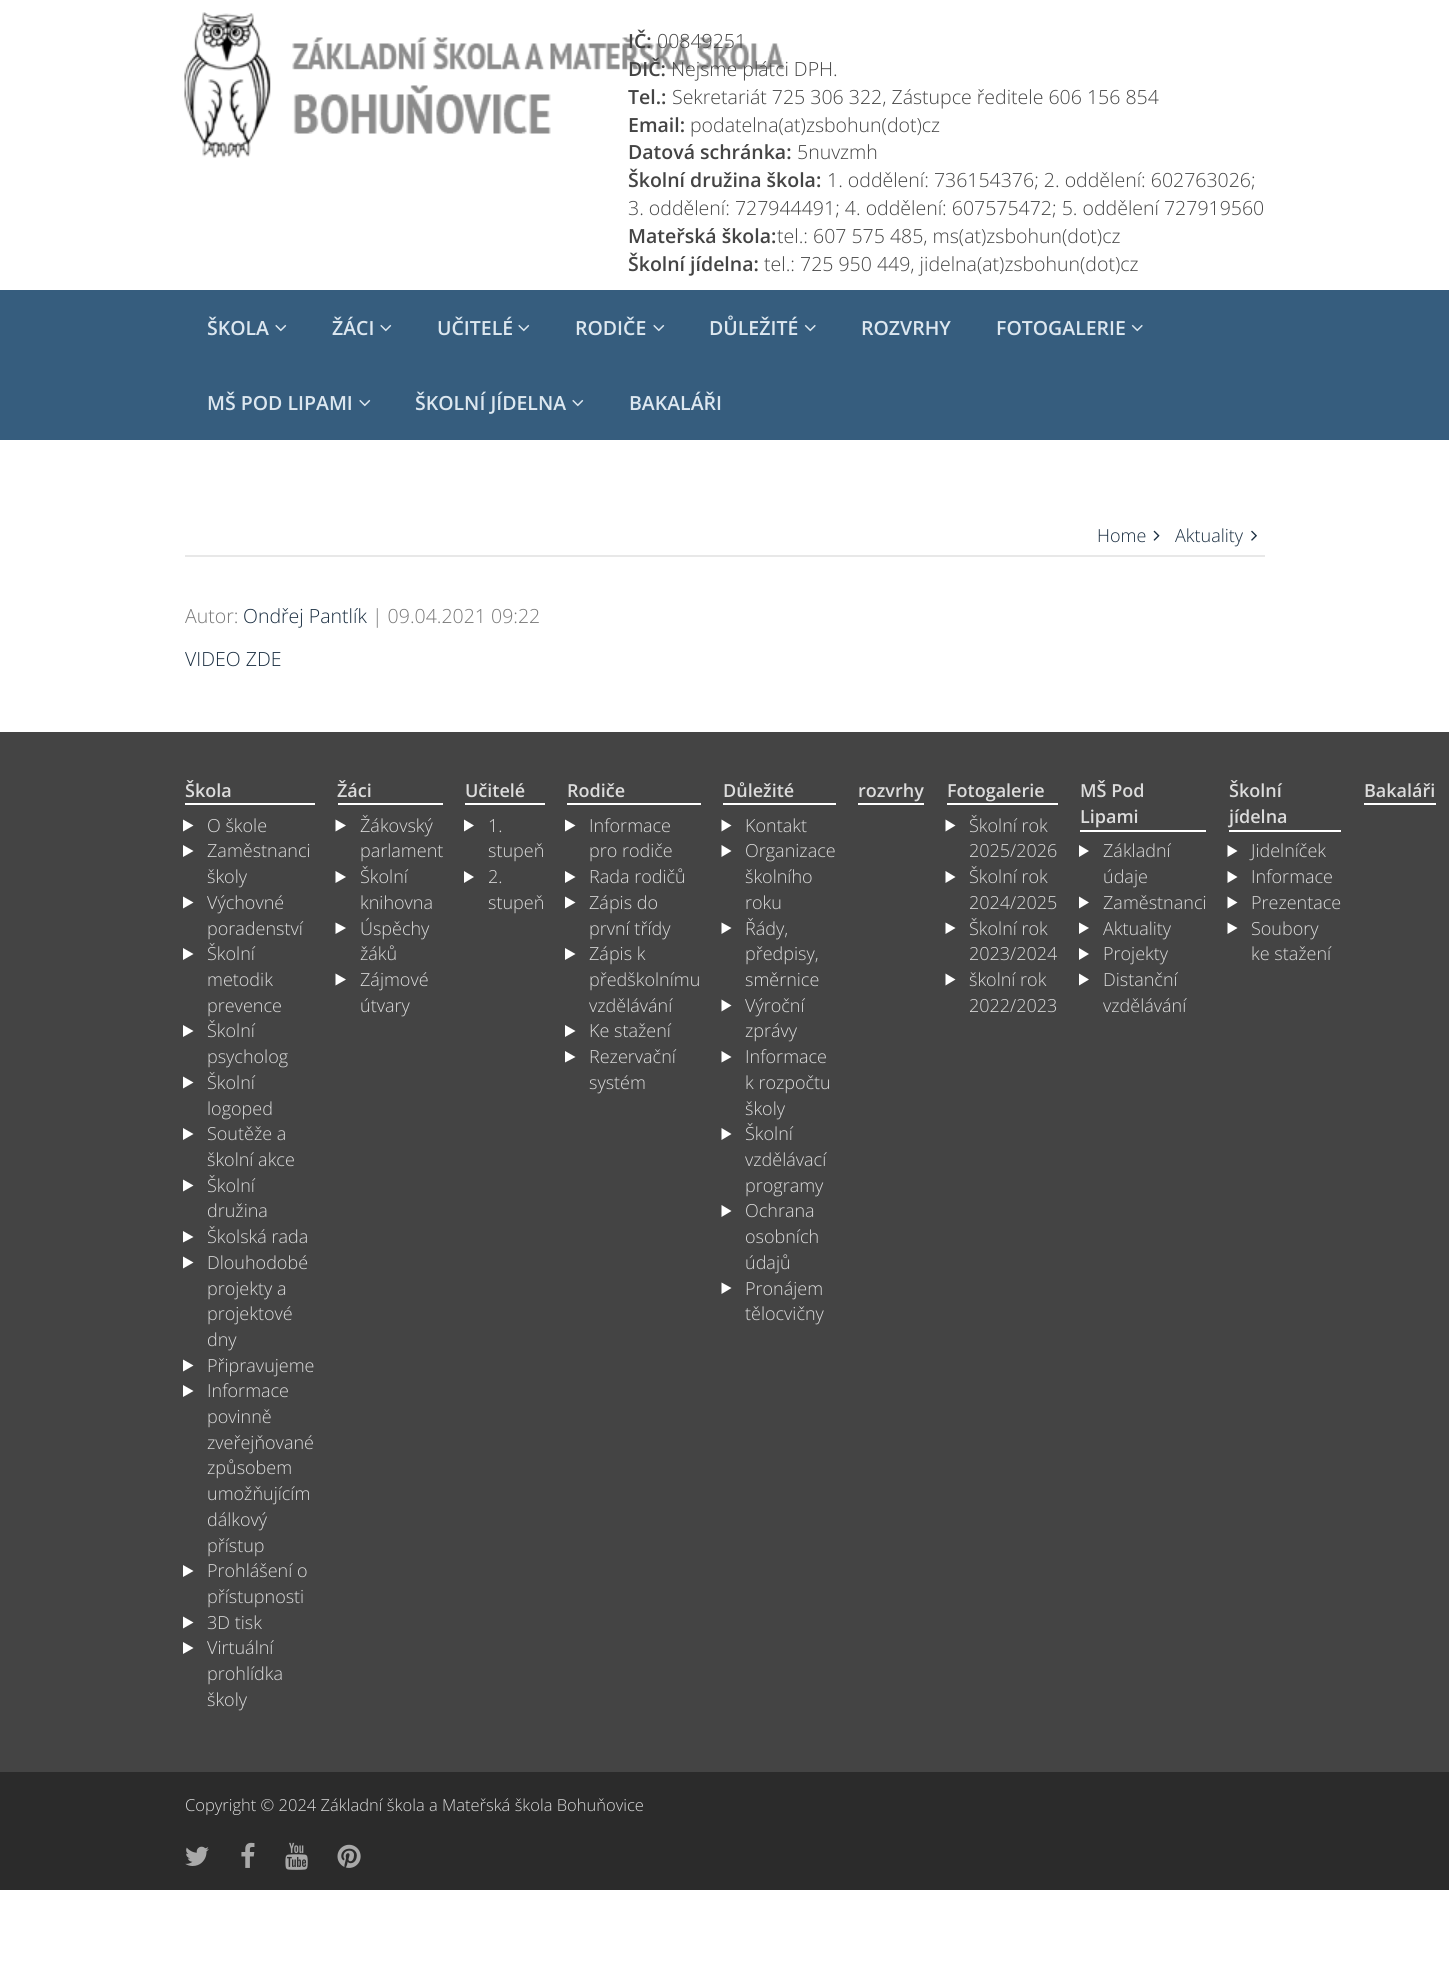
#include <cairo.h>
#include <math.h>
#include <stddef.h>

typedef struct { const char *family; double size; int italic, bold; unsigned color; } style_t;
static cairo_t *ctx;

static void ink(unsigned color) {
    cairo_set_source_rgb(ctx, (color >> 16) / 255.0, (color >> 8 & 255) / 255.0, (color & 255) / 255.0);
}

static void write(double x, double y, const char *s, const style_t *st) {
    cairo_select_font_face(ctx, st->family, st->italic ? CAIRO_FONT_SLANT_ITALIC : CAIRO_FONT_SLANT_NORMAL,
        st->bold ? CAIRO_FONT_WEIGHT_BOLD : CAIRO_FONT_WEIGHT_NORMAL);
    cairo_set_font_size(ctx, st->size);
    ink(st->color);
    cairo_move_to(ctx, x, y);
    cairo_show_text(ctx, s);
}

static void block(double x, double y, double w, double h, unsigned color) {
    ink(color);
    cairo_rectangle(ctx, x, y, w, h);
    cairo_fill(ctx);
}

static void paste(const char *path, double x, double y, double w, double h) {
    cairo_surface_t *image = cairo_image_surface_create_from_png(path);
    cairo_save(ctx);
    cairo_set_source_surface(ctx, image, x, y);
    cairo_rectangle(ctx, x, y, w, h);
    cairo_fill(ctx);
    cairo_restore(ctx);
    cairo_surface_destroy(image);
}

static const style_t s1 = {"Open Sans SemiBold", 19.5, 0, 0, 0x444444};
static const style_t s2 = {"Open Sans Light", 19.5, 0, 0, 0x444444};
static const style_t s3 = {"Open Sans SemiBold", 19.5, 0, 0, 0xdce7f0};
static const style_t s4 = {"Open Sans Light", 18, 0, 0, 0x192d40};
static const style_t s5 = {"Open Sans Light", 19.5, 0, 0, 0x777777};
static const style_t s6 = {"Open Sans Light", 19.5, 0, 0, 0x192d40};
static const style_t s7 = {"Open Sans SemiBold", 18, 0, 0, 0xdcdcdc};
static const style_t s8 = {"Open Sans Light", 18, 0, 0, 0xdcdcdc};
static const style_t s9 = {"Open Sans Light", 16.5, 0, 0, 0xdcdcdc};

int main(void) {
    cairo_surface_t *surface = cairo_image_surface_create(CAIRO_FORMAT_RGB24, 1449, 1970);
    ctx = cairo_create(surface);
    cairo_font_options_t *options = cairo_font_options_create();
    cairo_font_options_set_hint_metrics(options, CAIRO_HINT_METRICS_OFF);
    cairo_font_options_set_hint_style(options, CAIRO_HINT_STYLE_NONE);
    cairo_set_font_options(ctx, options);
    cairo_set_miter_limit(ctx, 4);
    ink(0xffffff);
    cairo_paint(ctx);
    paste("pic1.png", 184, 12, 601, 146);
    write(628, 48, "IČ:", &s1);
    write(657, 48, "00849251", &s2);
    write(628, 76, "DIČ:", &s1);
    write(671, 76, "Nejsme plátci DPH.", &s2);
    write(628, 104, "Tel.:", &s1);
    write(672, 104, "Sekretariát 725 306 322, Zástupce ředitele 606 156 854", &s2);
    write(628, 132, "Email:", &s1);
    write(690, 132, "podatelna(at)zsbohun(dot)cz", &s2);
    write(628, 159, "Datová schránka:", &s1);
    write(797, 159, "5nuvzmh", &s2);
    write(628, 187, "Školní družina škola:", &s1);
    write(827, 187, "1. oddělení: 736154376; 2. oddělení: 602763026;", &s2);
    write(628, 215, "3. oddělení: 727944491; 4. oddělení: 607575472; 5. oddělení 727919560", &s2);
    write(628, 243, "Mateřská škola:", &s1);
    write(777, 243, "tel.: 607 575 485, ms(at)zsbohun(dot)cz", &s2);
    write(628, 271, "Školní jídelna:", &s1);
    write(764, 271, "tel.: 725 950 449, jidelna(at)zsbohun(dot)cz", &s2);
    block(0, 290, 1449, 150, 0x365d7e);
    write(207, 335, "ŠKOLA", &s3);
    paste("pic2.png", 275, 324, 12, 8);
    write(332, 335, "ŽÁCI", &s3);
    paste("pic2.png", 380, 324, 12, 8);
    write(437, 335, "UČITELÉ", &s3);
    paste("pic2.png", 518, 324, 12, 8);
    write(575, 335, "RODIČE", &s3);
    paste("pic2.png", 653, 324, 12, 8);
    write(709, 335, "DŮLEŽITÉ", &s3);
    paste("pic3.png", 804, 324, 12, 8);
    write(861, 335, "ROZVRHY", &s3);
    write(996, 335, "FOTOGALERIE", &s3);
    paste("pic3.png", 1131, 324, 12, 8);
    write(207, 410, "MŠ POD LIPAMI", &s3);
    paste("pic2.png", 359, 399, 12, 8);
    write(415, 410, "ŠKOLNÍ JÍDELNA", &s3);
    paste("pic2.png", 572, 399, 12, 8);
    write(629, 410, "BAKALÁŘI", &s3);
    block(185, 555, 1080, 2, 0xe8e8e8);
    write(1097, 542, "Home", &s4);
    paste("pic4.png", 1153, 530, 7, 11);
    write(1175, 542, "Aktuality", &s4);
    paste("pic5.png", 1251, 530, 6, 11);
    write(185, 623, "Autor:", &s5);
    write(243, 623, "Ondřej Pantlík", &s6);
    write(372, 623, "| 09.04.2021 09:22", &s5);
    write(185, 666, "VIDEO ZDE", &s6);
    block(0, 732, 1449, 1040, 0x444444);
    block(185, 803, 130, 2, 0xffffff);
    write(185, 797, "Škola", &s7);
    ink(0xffffff);
    cairo_new_path(ctx);
    cairo_move_to(ctx, 183, 819.5);
    cairo_line_to(ctx, 193.5, 825.5);
    cairo_line_to(ctx, 183, 831.5);
    cairo_close_path(ctx);
    cairo_fill(ctx);
    write(207, 832, "O škole", &s8);
    ink(0xffffff);
    cairo_new_path(ctx);
    cairo_move_to(ctx, 183, 845);
    cairo_line_to(ctx, 193.5, 851);
    cairo_line_to(ctx, 183, 857);
    cairo_close_path(ctx);
    cairo_fill(ctx);
    write(207, 857, "Zaměstnanci", &s8);
    write(207, 883, "školy", &s8);
    ink(0xffffff);
    cairo_new_path(ctx);
    cairo_move_to(ctx, 183, 896.5);
    cairo_line_to(ctx, 193.5, 902.5);
    cairo_line_to(ctx, 183, 908.5);
    cairo_close_path(ctx);
    cairo_fill(ctx);
    write(207, 909, "Výchovné", &s8);
    write(207, 935, "poradenství", &s8);
    ink(0xffffff);
    cairo_new_path(ctx);
    cairo_move_to(ctx, 183, 948);
    cairo_line_to(ctx, 193.5, 954);
    cairo_line_to(ctx, 183, 960);
    cairo_close_path(ctx);
    cairo_fill(ctx);
    write(207, 960, "Školní", &s8);
    write(207, 986, "metodik", &s8);
    write(207, 1012, "prevence", &s8);
    ink(0xffffff);
    cairo_new_path(ctx);
    cairo_move_to(ctx, 183, 1025);
    cairo_line_to(ctx, 193.5, 1031);
    cairo_line_to(ctx, 183, 1037);
    cairo_close_path(ctx);
    cairo_fill(ctx);
    write(207, 1037, "Školní", &s8);
    write(207, 1063, "psycholog", &s8);
    ink(0xffffff);
    cairo_new_path(ctx);
    cairo_move_to(ctx, 183, 1076.5);
    cairo_line_to(ctx, 193.5, 1082.5);
    cairo_line_to(ctx, 183, 1088.5);
    cairo_close_path(ctx);
    cairo_fill(ctx);
    write(207, 1089, "Školní", &s8);
    write(207, 1115, "logoped", &s8);
    ink(0xffffff);
    cairo_new_path(ctx);
    cairo_move_to(ctx, 183, 1128);
    cairo_line_to(ctx, 193.5, 1134);
    cairo_line_to(ctx, 183, 1140);
    cairo_close_path(ctx);
    cairo_fill(ctx);
    write(207, 1140, "Soutěže a", &s8);
    write(207, 1166, "školní akce", &s8);
    ink(0xffffff);
    cairo_new_path(ctx);
    cairo_move_to(ctx, 183, 1179.5);
    cairo_line_to(ctx, 193.5, 1185.5);
    cairo_line_to(ctx, 183, 1191.5);
    cairo_close_path(ctx);
    cairo_fill(ctx);
    write(207, 1192, "Školní", &s8);
    write(207, 1217, "družina", &s8);
    ink(0xffffff);
    cairo_new_path(ctx);
    cairo_move_to(ctx, 183, 1231);
    cairo_line_to(ctx, 193.5, 1237);
    cairo_line_to(ctx, 183, 1242.5);
    cairo_close_path(ctx);
    cairo_fill(ctx);
    write(207, 1243, "Školská rada", &s8);
    ink(0xffffff);
    cairo_new_path(ctx);
    cairo_move_to(ctx, 183, 1256.5);
    cairo_line_to(ctx, 193.5, 1262.5);
    cairo_line_to(ctx, 183, 1268.5);
    cairo_close_path(ctx);
    cairo_fill(ctx);
    write(207, 1269, "Dlouhodobé", &s8);
    write(207, 1295, "projekty a", &s8);
    write(207, 1320, "projektové", &s8);
    write(207, 1346, "dny", &s8);
    ink(0xffffff);
    cairo_new_path(ctx);
    cairo_move_to(ctx, 183, 1359.5);
    cairo_line_to(ctx, 193.5, 1365.5);
    cairo_line_to(ctx, 183, 1371.5);
    cairo_close_path(ctx);
    cairo_fill(ctx);
    write(207, 1372, "Připravujeme", &s8);
    ink(0xffffff);
    cairo_new_path(ctx);
    cairo_move_to(ctx, 183, 1385);
    cairo_line_to(ctx, 193.5, 1391);
    cairo_line_to(ctx, 183, 1397);
    cairo_close_path(ctx);
    cairo_fill(ctx);
    write(207, 1397, "Informace", &s8);
    write(207, 1423, "povinně", &s8);
    write(207, 1449, "zveřejňované", &s8);
    write(207, 1474, "způsobem", &s8);
    write(207, 1500, "umožňujícím", &s8);
    write(207, 1526, "dálkový", &s8);
    write(207, 1552, "přístup", &s8);
    ink(0xffffff);
    cairo_new_path(ctx);
    cairo_move_to(ctx, 183, 1565);
    cairo_line_to(ctx, 193.5, 1571);
    cairo_line_to(ctx, 183, 1577);
    cairo_close_path(ctx);
    cairo_fill(ctx);
    write(207, 1577, "Prohlášení o", &s8);
    write(207, 1603, "přístupnosti", &s8);
    ink(0xffffff);
    cairo_new_path(ctx);
    cairo_move_to(ctx, 183, 1616.5);
    cairo_line_to(ctx, 193.5, 1622.5);
    cairo_line_to(ctx, 183, 1628.5);
    cairo_close_path(ctx);
    cairo_fill(ctx);
    write(207, 1629, "3D tisk", &s8);
    ink(0xffffff);
    cairo_new_path(ctx);
    cairo_move_to(ctx, 183, 1642);
    cairo_line_to(ctx, 193.5, 1648);
    cairo_line_to(ctx, 183, 1654);
    cairo_close_path(ctx);
    cairo_fill(ctx);
    write(207, 1654, "Virtuální", &s8);
    write(207, 1680, "prohlídka", &s8);
    write(207, 1706, "školy", &s8);
    block(338, 803, 105, 2, 0xffffff);
    write(337, 797, "Žáci", &s7);
    ink(0xffffff);
    cairo_new_path(ctx);
    cairo_move_to(ctx, 335.5, 819.5);
    cairo_line_to(ctx, 346, 825.5);
    cairo_line_to(ctx, 335.5, 831.5);
    cairo_close_path(ctx);
    cairo_fill(ctx);
    write(360, 832, "Žákovský", &s8);
    write(360, 857, "parlament", &s8);
    ink(0xffffff);
    cairo_new_path(ctx);
    cairo_move_to(ctx, 335.5, 871);
    cairo_line_to(ctx, 346, 877);
    cairo_line_to(ctx, 335.5, 883);
    cairo_close_path(ctx);
    cairo_fill(ctx);
    write(360, 883, "Školní", &s8);
    write(360, 909, "knihovna", &s8);
    ink(0xffffff);
    cairo_new_path(ctx);
    cairo_move_to(ctx, 335.5, 922.5);
    cairo_line_to(ctx, 346, 928);
    cairo_line_to(ctx, 335.5, 934);
    cairo_close_path(ctx);
    cairo_fill(ctx);
    write(360, 935, "Úspěchy", &s8);
    write(360, 960, "žáků", &s8);
    ink(0xffffff);
    cairo_new_path(ctx);
    cairo_move_to(ctx, 335.5, 973.5);
    cairo_line_to(ctx, 346, 979.5);
    cairo_line_to(ctx, 335.5, 985.5);
    cairo_close_path(ctx);
    cairo_fill(ctx);
    write(360, 986, "Zájmové", &s8);
    write(360, 1012, "útvary", &s8);
    block(465, 803, 80, 2, 0xffffff);
    write(465, 797, "Učitelé", &s7);
    ink(0xffffff);
    cairo_new_path(ctx);
    cairo_move_to(ctx, 464, 819.5);
    cairo_line_to(ctx, 474, 825.5);
    cairo_line_to(ctx, 464, 831.5);
    cairo_close_path(ctx);
    cairo_fill(ctx);
    write(488, 832, "1.", &s8);
    write(488, 857, "stupeň", &s8);
    ink(0xffffff);
    cairo_new_path(ctx);
    cairo_move_to(ctx, 464, 871);
    cairo_line_to(ctx, 474, 877);
    cairo_line_to(ctx, 464, 883);
    cairo_close_path(ctx);
    cairo_fill(ctx);
    write(488, 883, "2.", &s8);
    write(488, 909, "stupeň", &s8);
    block(567, 803, 134, 2, 0xffffff);
    write(567, 797, "Rodiče", &s7);
    ink(0xffffff);
    cairo_new_path(ctx);
    cairo_move_to(ctx, 565, 819.5);
    cairo_line_to(ctx, 575.5, 825.5);
    cairo_line_to(ctx, 565, 831.5);
    cairo_close_path(ctx);
    cairo_fill(ctx);
    write(589, 832, "Informace", &s8);
    write(589, 857, "pro rodiče", &s8);
    ink(0xffffff);
    cairo_new_path(ctx);
    cairo_move_to(ctx, 565, 871);
    cairo_line_to(ctx, 575.5, 877);
    cairo_line_to(ctx, 565, 883);
    cairo_close_path(ctx);
    cairo_fill(ctx);
    write(589, 883, "Rada rodičů", &s8);
    ink(0xffffff);
    cairo_new_path(ctx);
    cairo_move_to(ctx, 565, 896.5);
    cairo_line_to(ctx, 575.5, 902.5);
    cairo_line_to(ctx, 565, 908.5);
    cairo_close_path(ctx);
    cairo_fill(ctx);
    write(589, 909, "Zápis do", &s8);
    write(589, 935, "první třídy", &s8);
    ink(0xffffff);
    cairo_new_path(ctx);
    cairo_move_to(ctx, 565, 948);
    cairo_line_to(ctx, 575.5, 954);
    cairo_line_to(ctx, 565, 960);
    cairo_close_path(ctx);
    cairo_fill(ctx);
    write(589, 960, "Zápis k", &s8);
    write(589, 986, "předškolnímu", &s8);
    write(589, 1012, "vzdělávání", &s8);
    ink(0xffffff);
    cairo_new_path(ctx);
    cairo_move_to(ctx, 565, 1025);
    cairo_line_to(ctx, 575.5, 1031);
    cairo_line_to(ctx, 565, 1037);
    cairo_close_path(ctx);
    cairo_fill(ctx);
    write(589, 1037, "Ke stažení", &s8);
    ink(0xffffff);
    cairo_new_path(ctx);
    cairo_move_to(ctx, 565, 1051);
    cairo_line_to(ctx, 575.5, 1057);
    cairo_line_to(ctx, 565, 1062.5);
    cairo_close_path(ctx);
    cairo_fill(ctx);
    write(589, 1063, "Rezervační", &s8);
    write(589, 1089, "systém", &s8);
    block(723, 803, 113, 2, 0xffffff);
    write(723, 797, "Důležité", &s7);
    ink(0xffffff);
    cairo_new_path(ctx);
    cairo_move_to(ctx, 721.5, 819.5);
    cairo_line_to(ctx, 731.5, 825.5);
    cairo_line_to(ctx, 721.5, 831.5);
    cairo_close_path(ctx);
    cairo_fill(ctx);
    write(745, 832, "Kontakt", &s8);
    ink(0xffffff);
    cairo_new_path(ctx);
    cairo_move_to(ctx, 721.5, 845);
    cairo_line_to(ctx, 731.5, 851);
    cairo_line_to(ctx, 721.5, 857);
    cairo_close_path(ctx);
    cairo_fill(ctx);
    write(745, 857, "Organizace", &s8);
    write(745, 883, "školního", &s8);
    write(745, 909, "roku", &s8);
    ink(0xffffff);
    cairo_new_path(ctx);
    cairo_move_to(ctx, 721.5, 922.5);
    cairo_line_to(ctx, 731.5, 928);
    cairo_line_to(ctx, 721.5, 934);
    cairo_close_path(ctx);
    cairo_fill(ctx);
    write(745, 935, "Řády,", &s8);
    write(745, 960, "předpisy,", &s8);
    write(745, 986, "směrnice", &s8);
    ink(0xffffff);
    cairo_new_path(ctx);
    cairo_move_to(ctx, 721.5, 999.5);
    cairo_line_to(ctx, 731.5, 1005.5);
    cairo_line_to(ctx, 721.5, 1011.5);
    cairo_close_path(ctx);
    cairo_fill(ctx);
    write(745, 1012, "Výroční", &s8);
    write(745, 1037, "zprávy", &s8);
    ink(0xffffff);
    cairo_new_path(ctx);
    cairo_move_to(ctx, 721.5, 1051);
    cairo_line_to(ctx, 731.5, 1057);
    cairo_line_to(ctx, 721.5, 1062.5);
    cairo_close_path(ctx);
    cairo_fill(ctx);
    write(745, 1063, "Informace", &s8);
    write(745, 1089, "k rozpočtu", &s8);
    write(745, 1115, "školy", &s8);
    ink(0xffffff);
    cairo_new_path(ctx);
    cairo_move_to(ctx, 721.5, 1128);
    cairo_line_to(ctx, 731.5, 1134);
    cairo_line_to(ctx, 721.5, 1140);
    cairo_close_path(ctx);
    cairo_fill(ctx);
    write(745, 1140, "Školní", &s8);
    write(745, 1166, "vzdělávací", &s8);
    write(745, 1192, "programy", &s8);
    ink(0xffffff);
    cairo_new_path(ctx);
    cairo_move_to(ctx, 721.5, 1205);
    cairo_line_to(ctx, 731.5, 1211);
    cairo_line_to(ctx, 721.5, 1217);
    cairo_close_path(ctx);
    cairo_fill(ctx);
    write(745, 1217, "Ochrana", &s8);
    write(745, 1243, "osobních", &s8);
    write(745, 1269, "údajů", &s8);
    ink(0xffffff);
    cairo_new_path(ctx);
    cairo_move_to(ctx, 721.5, 1282.5);
    cairo_line_to(ctx, 731.5, 1288);
    cairo_line_to(ctx, 721.5, 1294);
    cairo_close_path(ctx);
    cairo_fill(ctx);
    write(745, 1295, "Pronájem", &s8);
    write(745, 1320, "tělocvičny", &s8);
    block(858, 803, 66, 2, 0xffffff);
    write(858, 797, "rozvrhy", &s7);
    block(947, 803, 111, 2, 0xffffff);
    write(947, 797, "Fotogalerie", &s7);
    ink(0xffffff);
    cairo_new_path(ctx);
    cairo_move_to(ctx, 945.5, 819.5);
    cairo_line_to(ctx, 955.5, 825.5);
    cairo_line_to(ctx, 945.5, 831.5);
    cairo_close_path(ctx);
    cairo_fill(ctx);
    write(969, 832, "Školní rok", &s8);
    write(969, 857, "2025/2026", &s8);
    ink(0xffffff);
    cairo_new_path(ctx);
    cairo_move_to(ctx, 945.5, 871);
    cairo_line_to(ctx, 955.5, 877);
    cairo_line_to(ctx, 945.5, 883);
    cairo_close_path(ctx);
    cairo_fill(ctx);
    write(969, 883, "Školní rok", &s8);
    write(969, 909, "2024/2025", &s8);
    ink(0xffffff);
    cairo_new_path(ctx);
    cairo_move_to(ctx, 945.5, 922.5);
    cairo_line_to(ctx, 955.5, 928);
    cairo_line_to(ctx, 945.5, 934);
    cairo_close_path(ctx);
    cairo_fill(ctx);
    write(969, 935, "Školní rok", &s8);
    write(969, 960, "2023/2024", &s8);
    ink(0xffffff);
    cairo_new_path(ctx);
    cairo_move_to(ctx, 945.5, 973.5);
    cairo_line_to(ctx, 955.5, 979.5);
    cairo_line_to(ctx, 945.5, 985.5);
    cairo_close_path(ctx);
    cairo_fill(ctx);
    write(969, 986, "školní rok", &s8);
    write(969, 1012, "2022/2023", &s8);
    block(1080, 830, 126, 2, 0xffffff);
    write(1080, 797, "MŠ Pod", &s7);
    write(1080, 823, "Lipami", &s7);
    ink(0xffffff);
    cairo_new_path(ctx);
    cairo_move_to(ctx, 1079, 845);
    cairo_line_to(ctx, 1089, 851);
    cairo_line_to(ctx, 1079, 857);
    cairo_close_path(ctx);
    cairo_fill(ctx);
    write(1103, 857, "Základní", &s8);
    write(1103, 883, "údaje", &s8);
    ink(0xffffff);
    cairo_new_path(ctx);
    cairo_move_to(ctx, 1079, 896.5);
    cairo_line_to(ctx, 1089, 902.5);
    cairo_line_to(ctx, 1079, 908.5);
    cairo_close_path(ctx);
    cairo_fill(ctx);
    write(1103, 909, "Zaměstnanci", &s8);
    ink(0xffffff);
    cairo_new_path(ctx);
    cairo_move_to(ctx, 1079, 922.5);
    cairo_line_to(ctx, 1089, 928);
    cairo_line_to(ctx, 1079, 934);
    cairo_close_path(ctx);
    cairo_fill(ctx);
    write(1103, 935, "Aktuality", &s8);
    ink(0xffffff);
    cairo_new_path(ctx);
    cairo_move_to(ctx, 1079, 948);
    cairo_line_to(ctx, 1089, 954);
    cairo_line_to(ctx, 1079, 960);
    cairo_close_path(ctx);
    cairo_fill(ctx);
    write(1103, 960, "Projekty", &s8);
    ink(0xffffff);
    cairo_new_path(ctx);
    cairo_move_to(ctx, 1079, 973.5);
    cairo_line_to(ctx, 1089, 979.5);
    cairo_line_to(ctx, 1079, 985.5);
    cairo_close_path(ctx);
    cairo_fill(ctx);
    write(1103, 986, "Distanční", &s8);
    write(1103, 1012, "vzdělávání", &s8);
    block(1229, 830, 112, 2, 0xffffff);
    write(1229, 797, "Školní", &s7);
    write(1229, 823, "jídelna", &s7);
    ink(0xffffff);
    cairo_new_path(ctx);
    cairo_move_to(ctx, 1227.5, 845);
    cairo_line_to(ctx, 1237.5, 851);
    cairo_line_to(ctx, 1227.5, 857);
    cairo_close_path(ctx);
    cairo_fill(ctx);
    write(1251, 857, "Jidelníček", &s8);
    ink(0xffffff);
    cairo_new_path(ctx);
    cairo_move_to(ctx, 1227.5, 871);
    cairo_line_to(ctx, 1237.5, 877);
    cairo_line_to(ctx, 1227.5, 883);
    cairo_close_path(ctx);
    cairo_fill(ctx);
    write(1251, 883, "Informace", &s8);
    ink(0xffffff);
    cairo_new_path(ctx);
    cairo_move_to(ctx, 1227.5, 896.5);
    cairo_line_to(ctx, 1237.5, 902.5);
    cairo_line_to(ctx, 1227.5, 908.5);
    cairo_close_path(ctx);
    cairo_fill(ctx);
    write(1251, 909, "Prezentace", &s8);
    ink(0xffffff);
    cairo_new_path(ctx);
    cairo_move_to(ctx, 1227.5, 922.5);
    cairo_line_to(ctx, 1237.5, 928);
    cairo_line_to(ctx, 1227.5, 934);
    cairo_close_path(ctx);
    cairo_fill(ctx);
    write(1251, 935, "Soubory", &s8);
    write(1251, 960, "ke stažení", &s8);
    block(1364, 803, 72, 2, 0xffffff);
    write(1364, 797, "Bakaláři", &s7);
    block(0, 1772, 1449, 118, 0x2b2b2b);
    write(185, 1811, "Copyright © 2024 Základní škola a Mateřská škola Bohuňovice", &s9);
    paste("pic6.png", 185, 1846, 24, 20);
    paste("pic7.png", 241, 1842, 14, 26);
    paste("pic8.png", 285, 1842, 23, 28);
    paste("pic9.png", 337, 1844, 24, 24);
    cairo_surface_write_to_png(surface, "screenshot.png");
    cairo_font_options_destroy(options);
    cairo_destroy(ctx);
    cairo_surface_destroy(surface);
    return 0;
}
